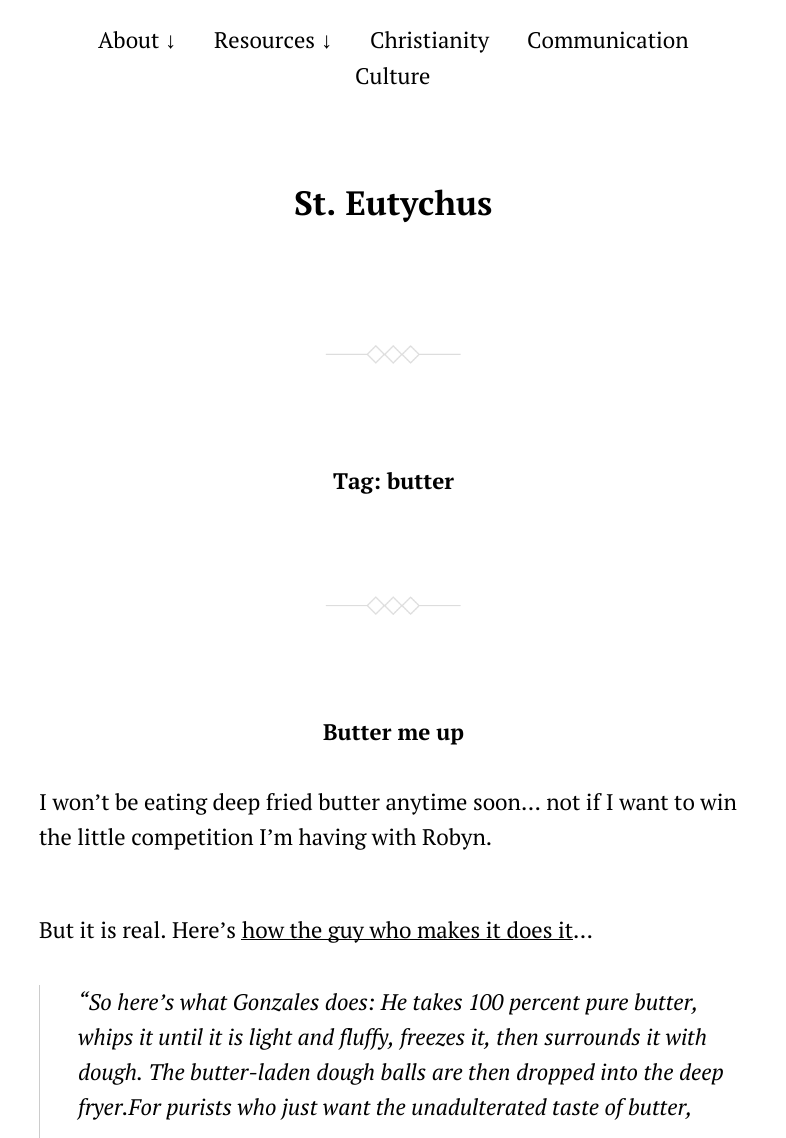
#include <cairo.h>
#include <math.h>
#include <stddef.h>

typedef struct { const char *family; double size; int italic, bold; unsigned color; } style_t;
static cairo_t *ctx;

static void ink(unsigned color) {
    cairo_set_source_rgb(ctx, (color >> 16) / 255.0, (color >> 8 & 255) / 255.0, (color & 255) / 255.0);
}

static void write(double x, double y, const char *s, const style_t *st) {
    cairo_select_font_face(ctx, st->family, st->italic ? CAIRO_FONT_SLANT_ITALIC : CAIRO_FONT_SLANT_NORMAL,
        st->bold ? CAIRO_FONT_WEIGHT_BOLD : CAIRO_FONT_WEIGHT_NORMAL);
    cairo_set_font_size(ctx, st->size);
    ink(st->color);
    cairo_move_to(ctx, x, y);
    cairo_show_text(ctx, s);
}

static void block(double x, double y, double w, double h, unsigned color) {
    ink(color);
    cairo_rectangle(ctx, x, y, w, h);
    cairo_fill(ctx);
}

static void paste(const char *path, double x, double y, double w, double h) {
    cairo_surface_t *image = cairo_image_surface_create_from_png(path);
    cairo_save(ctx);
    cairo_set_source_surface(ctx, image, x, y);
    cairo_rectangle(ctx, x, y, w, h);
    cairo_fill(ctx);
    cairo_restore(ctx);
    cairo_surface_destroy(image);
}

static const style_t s1 = {"PT Serif", 22.5, 0, 0, 0x000000};
static const style_t s2 = {"Liberation Sans", 22.5, 0, 0, 0x000000};
static const style_t s3 = {"PT Serif", 33.75, 0, 1, 0x000000};
static const style_t s4 = {"PT Serif", 22.5, 0, 1, 0x000000};
static const style_t s5 = {"PT Serif", 22.5, 1, 0, 0x000000};

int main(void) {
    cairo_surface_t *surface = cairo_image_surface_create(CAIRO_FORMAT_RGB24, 786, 1138);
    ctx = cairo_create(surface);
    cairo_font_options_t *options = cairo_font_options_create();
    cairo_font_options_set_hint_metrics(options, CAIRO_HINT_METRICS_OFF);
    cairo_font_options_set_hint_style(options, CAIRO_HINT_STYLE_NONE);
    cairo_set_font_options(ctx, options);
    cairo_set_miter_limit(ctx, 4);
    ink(0xffffff);
    cairo_paint(ctx);
    write(98, 48, "About", &s1);
    write(165, 48, "↓", &s2);
    write(214, 48, "Resources", &s1);
    write(321, 48, "↓", &s2);
    write(370, 48, "Christianity", &s1);
    write(527, 48, "Communication", &s1);
    write(355, 84, "Culture", &s1);
    write(294, 215, "St. Eutychus", &s3);
    paste("pic1.png", 325, 345, 136, 19);
    write(333, 489, "Tag: butter", &s4);
    paste("pic2.png", 325, 596, 136, 19);
    write(323, 740, "Butter me up", &s4);
    write(39, 810, "I won’t be eating deep fried butter anytime soon… not if I want to win", &s1);
    write(39, 845, "the little competition I’m having with Robyn.", &s1);
    write(39, 938, "But it is real. Here’s", &s1);
    block(241, 939, 332, 1, 0x000000);
    write(242, 938, "how the guy who makes it does it…", &s1);
    block(39, 985, 1, 153, 0xcccccc);
    write(78, 1010, "“So here’s what Gonzales does: He takes 100 percent pure butter,", &s5);
    write(78, 1045, "whips it until it is light and fluffy, freezes it, then surrounds it with", &s5);
    write(78, 1080, "dough. The butter-laden dough balls are then dropped into the deep", &s5);
    write(78, 1115, "fryer.For purists who just want the unadulterated taste of butter,", &s5);
    cairo_surface_write_to_png(surface, "screenshot.png");
    cairo_font_options_destroy(options);
    cairo_destroy(ctx);
    cairo_surface_destroy(surface);
    return 0;
}
